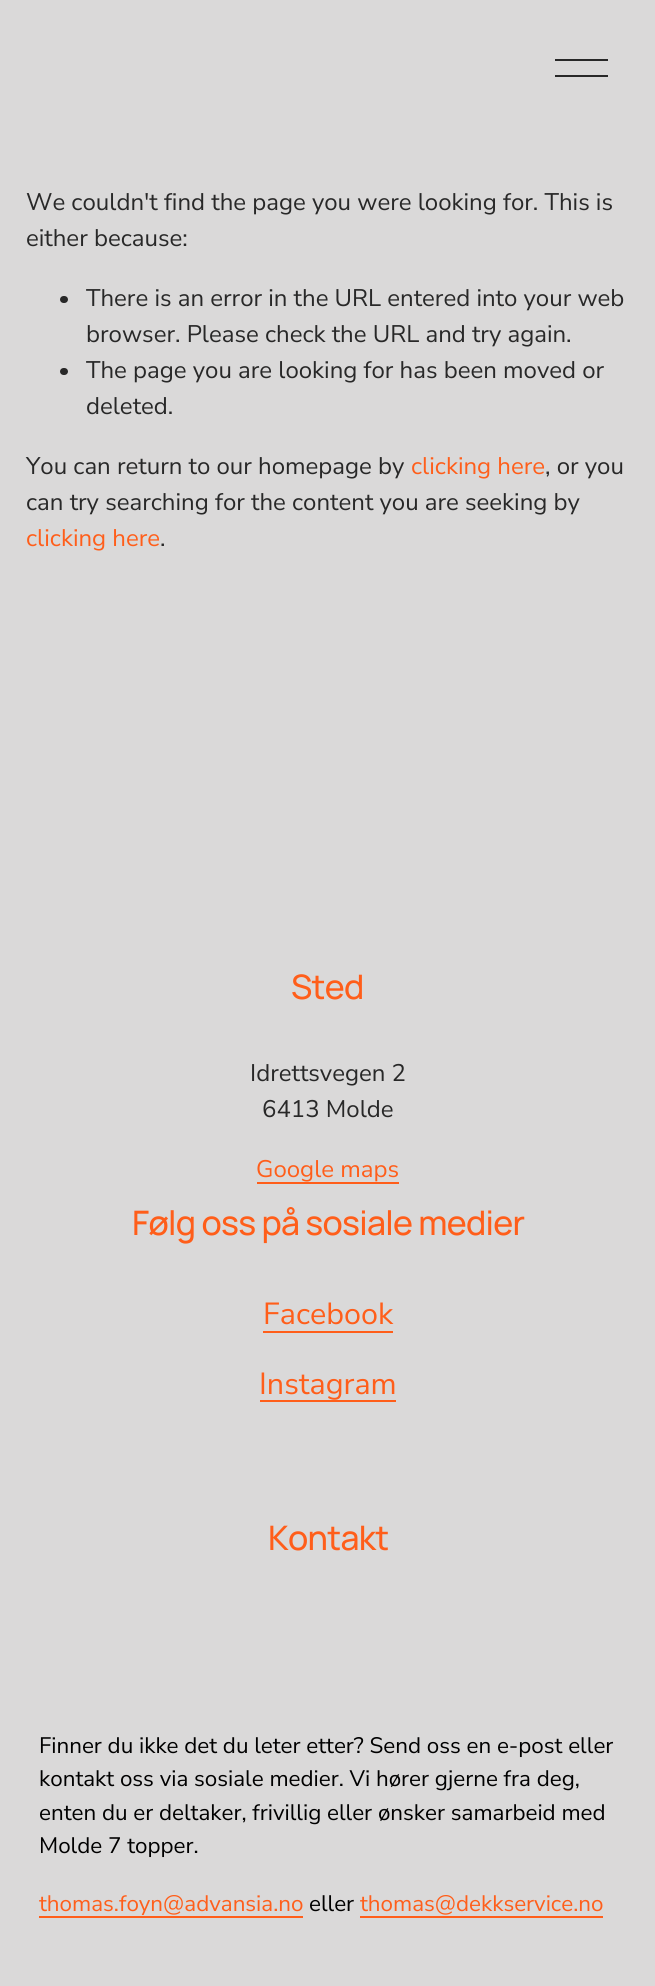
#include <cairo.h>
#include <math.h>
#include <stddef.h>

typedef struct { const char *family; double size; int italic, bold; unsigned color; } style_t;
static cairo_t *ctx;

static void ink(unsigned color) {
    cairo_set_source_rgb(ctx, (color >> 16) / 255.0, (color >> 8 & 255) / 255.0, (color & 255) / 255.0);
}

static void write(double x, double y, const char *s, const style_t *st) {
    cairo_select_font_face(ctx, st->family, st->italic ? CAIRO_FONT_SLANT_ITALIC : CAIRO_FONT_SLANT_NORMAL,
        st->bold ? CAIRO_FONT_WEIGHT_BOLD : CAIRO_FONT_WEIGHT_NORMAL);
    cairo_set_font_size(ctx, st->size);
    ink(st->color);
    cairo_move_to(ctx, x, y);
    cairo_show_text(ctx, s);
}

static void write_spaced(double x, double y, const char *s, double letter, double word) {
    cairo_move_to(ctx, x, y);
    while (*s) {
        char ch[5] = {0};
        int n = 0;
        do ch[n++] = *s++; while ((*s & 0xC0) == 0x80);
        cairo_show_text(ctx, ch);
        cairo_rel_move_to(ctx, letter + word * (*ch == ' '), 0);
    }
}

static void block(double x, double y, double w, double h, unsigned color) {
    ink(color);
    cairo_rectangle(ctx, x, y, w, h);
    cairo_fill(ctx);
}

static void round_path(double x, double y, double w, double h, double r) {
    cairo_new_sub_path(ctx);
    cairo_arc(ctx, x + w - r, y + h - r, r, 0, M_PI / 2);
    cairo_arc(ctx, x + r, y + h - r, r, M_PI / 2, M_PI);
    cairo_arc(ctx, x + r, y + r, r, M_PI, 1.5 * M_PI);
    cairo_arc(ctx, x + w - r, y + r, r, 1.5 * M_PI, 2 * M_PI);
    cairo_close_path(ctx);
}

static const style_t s1 = {"Nunito Sans", 24, 0, 0, 0x282828};
static const style_t s2 = {"Nunito Sans", 24, 0, 0, 0xff5e1a};
static const style_t s3 = {"Nunito Sans", 30.5, 0, 0, 0xff5e1a};
static const style_t s4 = {"Nunito Sans", 22.4, 0, 0, 0x000000};
static const style_t s5 = {"Nunito Sans", 22.4, 0, 0, 0xff5e1a};

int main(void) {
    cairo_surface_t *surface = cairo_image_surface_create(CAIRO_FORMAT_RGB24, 655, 1986);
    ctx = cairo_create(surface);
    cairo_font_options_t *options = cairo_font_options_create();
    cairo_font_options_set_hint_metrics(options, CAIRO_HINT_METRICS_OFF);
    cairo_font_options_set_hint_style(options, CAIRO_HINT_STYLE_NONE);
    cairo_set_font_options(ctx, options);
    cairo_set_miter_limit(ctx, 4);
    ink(0xdad9d9);
    cairo_paint(ctx);
    block(555, 59, 53, 2, 0x282828);
    block(555, 75, 53, 2, 0x282828);
    write(26, 210, "We couldn't find the page you were looking for. This is", &s1);
    write(26, 246, "either because:", &s1);
    round_path(60, 296, 8, 7, 3.5);
    cairo_fill(ctx);
    write(86, 306, "There is an error in the URL entered into your web", &s1);
    write(86, 342, "browser. Please check the URL and try again.", &s1);
    round_path(60, 368, 8, 7, 3.5);
    cairo_fill(ctx);
    write(86, 378, "The page you are looking for has been moved or", &s1);
    write(86, 414, "deleted.", &s1);
    write(26, 474, "You can return to our homepage by", &s1);
    write(411, 474, "clicking here", &s2);
    write(545, 474, ", or you", &s1);
    write(26, 510, "can try searching for the content you are seeking by", &s1);
    write(26, 546, "clicking here", &s2);
    write(160, 546, ".", &s1);
    cairo_select_font_face(ctx, "Manrope Medium", CAIRO_FONT_SLANT_NORMAL, CAIRO_FONT_WEIGHT_NORMAL);
    cairo_set_font_size(ctx, 33.75);
    ink(0xff5e1a);
    write_spaced(291, 999, "Sted", -0.7, 0);
    write(250, 1081, "Idrettsvegen 2", &s1);
    write(262, 1117, "6413 Molde", &s1);
    write(256, 1177, "Google maps", &s2);
    block(257, 1182, 142, 2, 0xff5e1a);
    cairo_select_font_face(ctx, "Manrope Medium", CAIRO_FONT_SLANT_NORMAL, CAIRO_FONT_WEIGHT_NORMAL);
    cairo_set_font_size(ctx, 33.75);
    write_spaced(132, 1235, "Følg oss på sosiale medier", -0.7, 0);
    write(263, 1324, "Facebook", &s3);
    block(263, 1331, 130, 2, 0xff5e1a);
    write(259, 1394, "Instagram", &s3);
    block(260, 1400, 136, 2, 0xff5e1a);
    cairo_select_font_face(ctx, "Manrope Medium", CAIRO_FONT_SLANT_NORMAL, CAIRO_FONT_WEIGHT_NORMAL);
    cairo_set_font_size(ctx, 33.75);
    write_spaced(268, 1550, "Kontakt", -0.7, 0);
    write(39, 1753, "Finner du ikke det du leter etter? Send oss en e-post eller", &s4);
    write(39, 1786, "kontakt oss via sosiale medier. Vi hører gjerne fra deg,", &s4);
    write(39, 1820, "enten du er deltaker, frivillig eller ønsker samarbeid med", &s4);
    write(39, 1853, "Molde 7 topper.", &s4);
    write(39, 1911, "thomas.foyn@advansia.no", &s5);
    block(39, 1916, 264, 2, 0xff5e1a);
    write(309, 1911, "eller", &s4);
    write(360, 1911, "thomas@dekkservice.no", &s5);
    block(360, 1916, 243, 2, 0xff5e1a);
    cairo_surface_write_to_png(surface, "screenshot.png");
    cairo_font_options_destroy(options);
    cairo_destroy(ctx);
    cairo_surface_destroy(surface);
    return 0;
}
